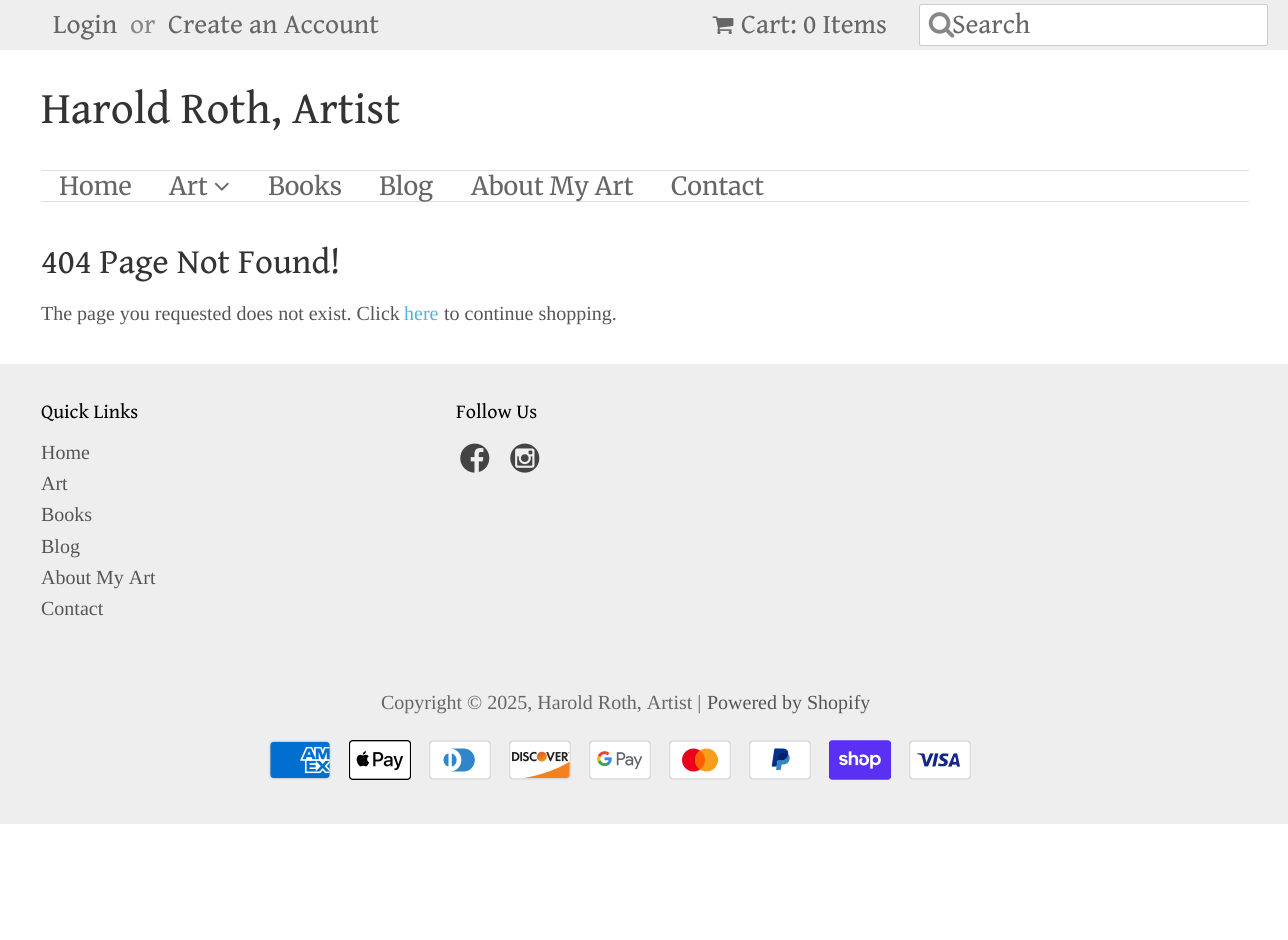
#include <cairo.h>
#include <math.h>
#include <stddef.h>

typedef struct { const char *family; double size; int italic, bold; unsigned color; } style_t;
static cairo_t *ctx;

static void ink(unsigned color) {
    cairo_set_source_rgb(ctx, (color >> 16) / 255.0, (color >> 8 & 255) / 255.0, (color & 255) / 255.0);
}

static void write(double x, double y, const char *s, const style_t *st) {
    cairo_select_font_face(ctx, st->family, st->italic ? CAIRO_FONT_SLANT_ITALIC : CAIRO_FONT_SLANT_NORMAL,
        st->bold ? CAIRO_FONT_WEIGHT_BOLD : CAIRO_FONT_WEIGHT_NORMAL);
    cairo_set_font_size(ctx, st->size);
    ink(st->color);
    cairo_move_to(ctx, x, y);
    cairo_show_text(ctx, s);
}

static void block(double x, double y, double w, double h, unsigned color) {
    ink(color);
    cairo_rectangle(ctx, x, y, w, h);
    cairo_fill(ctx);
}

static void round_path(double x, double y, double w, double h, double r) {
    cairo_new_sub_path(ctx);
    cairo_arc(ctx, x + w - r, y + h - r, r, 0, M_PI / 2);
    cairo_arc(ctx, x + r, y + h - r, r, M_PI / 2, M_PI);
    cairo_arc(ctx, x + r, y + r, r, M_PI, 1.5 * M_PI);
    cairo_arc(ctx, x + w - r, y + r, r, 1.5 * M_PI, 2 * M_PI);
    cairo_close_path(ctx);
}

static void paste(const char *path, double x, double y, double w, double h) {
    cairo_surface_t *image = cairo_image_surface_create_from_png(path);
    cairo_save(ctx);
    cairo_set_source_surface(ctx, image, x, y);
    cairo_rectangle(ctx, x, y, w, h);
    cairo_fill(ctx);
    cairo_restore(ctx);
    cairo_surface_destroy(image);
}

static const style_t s1 = {"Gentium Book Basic", 27.5, 0, 0, 0x666666};
static const style_t s2 = {"Gentium Book Basic", 27.5, 0, 0, 0x888888};
static const style_t s3 = {"Gentium Book Basic", 45, 0, 0, 0x333333};
static const style_t s4 = {"Merriweather", 25, 0, 0, 0x666666};
static const style_t s5 = {"Gentium Book Basic", 35, 0, 0, 0x333333};
static const style_t s6 = {"Liberation Serif", 20, 0, 0, 0x555555};
static const style_t s7 = {"Liberation Serif", 20, 0, 0, 0x50b3da};
static const style_t s8 = {"Gentium Book Basic", 20, 0, 0, 0x000000};
static const style_t s9 = {"Liberation Serif", 20, 0, 0, 0x666666};

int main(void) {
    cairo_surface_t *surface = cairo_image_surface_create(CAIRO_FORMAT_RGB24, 1288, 940);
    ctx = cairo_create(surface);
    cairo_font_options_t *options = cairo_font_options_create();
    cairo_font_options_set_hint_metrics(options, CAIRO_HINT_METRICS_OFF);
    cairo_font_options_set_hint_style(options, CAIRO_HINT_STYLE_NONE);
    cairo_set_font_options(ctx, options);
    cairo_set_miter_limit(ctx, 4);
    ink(0xffffff);
    cairo_paint(ctx);
    block(0, 0, 1288, 50, 0xeeeeee);
    write(53, 33, "Login", &s1);
    write(130, 33, "or", &s2);
    write(168, 33, "Create an Account", &s1);
    paste("pic1.png", 712, 16, 22, 19);
    write(741, 33, "Cart: 0 Items", &s1);
    ink(0xffffff);
    round_path(919.5, 4.5, 348, 41, 2);
    cairo_fill_preserve(ctx);
    ink(0xcccccc);
    cairo_set_line_width(ctx, 1);
    cairo_stroke(ctx);
    write(952, 33, "Search", &s1);
    paste("pic2.png", 928, 12, 27, 26);
    write(41, 123, "Harold Roth, Artist", &s3);
    block(41, 170, 1208, 1, 0xdddddd);
    block(41, 201, 1208, 1, 0xdddddd);
    write(59, 195, "Home", &s4);
    write(169, 195, "Art", &s4);
    paste("pic3.png", 214, 182, 15, 9);
    write(268, 195, "Books", &s4);
    write(379, 195, "Blog", &s4);
    write(471, 195, "About My Art", &s4);
    write(671, 195, "Contact", &s4);
    write(41, 273, "404 Page Not Found!", &s5);
    write(41, 320, "The page you requested does not exist. Click", &s6);
    write(404, 320, "here", &s7);
    write(444, 320, "to continue shopping.", &s6);
    block(0, 364, 1288, 460, 0xeeeeee);
    write(41, 418, "Quick Links", &s8);
    write(41, 459, "Home", &s6);
    write(41, 490, "Art", &s6);
    write(41, 521, "Books", &s6);
    write(41, 553, "Blog", &s6);
    write(41, 584, "About My Art", &s6);
    write(41, 615, "Contact", &s6);
    write(456, 418, "Follow Us", &s8);
    paste("pic4.png", 460, 443, 30, 30);
    paste("pic5.png", 510, 443, 30, 30);
    write(381, 709, "Copyright © 2025, Harold Roth, Artist |", &s9);
    write(707, 709, "Powered by Shopify", &s6);
    paste("pic6.png", 269, 740, 62, 40);
    paste("pic7.png", 349, 740, 62, 40);
    paste("pic8.png", 429, 740, 62, 40);
    paste("pic9.png", 509, 740, 62, 40);
    paste("pic10.png", 589, 740, 62, 40);
    paste("pic11.png", 669, 740, 62, 40);
    paste("pic12.png", 749, 740, 62, 40);
    paste("pic13.png", 829, 740, 62, 40);
    paste("pic14.png", 909, 740, 62, 40);
    cairo_surface_write_to_png(surface, "screenshot.png");
    cairo_font_options_destroy(options);
    cairo_destroy(ctx);
    cairo_surface_destroy(surface);
    return 0;
}
